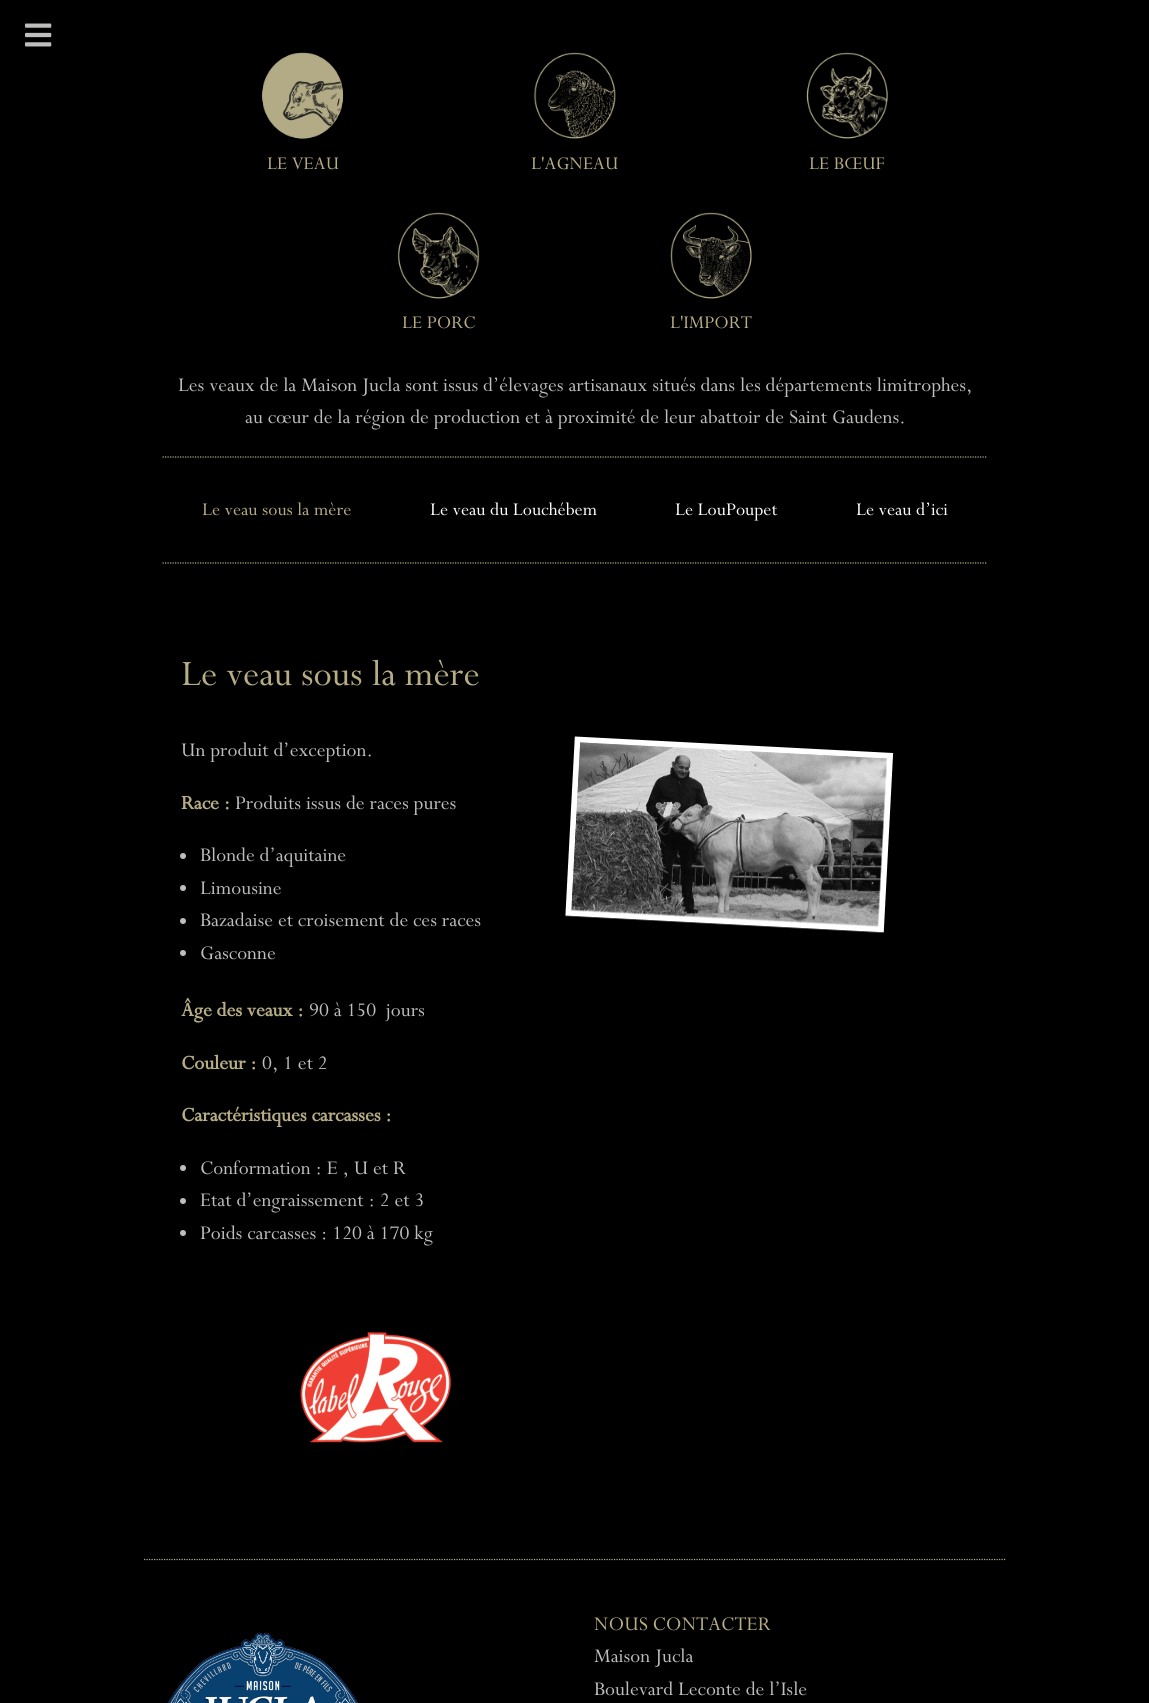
#include <cairo.h>
#include <math.h>
#include <stddef.h>

typedef struct { const char *family; double size; int italic, bold; unsigned color; } style_t;
static cairo_t *ctx;

static void ink(unsigned color) {
    cairo_set_source_rgb(ctx, (color >> 16) / 255.0, (color >> 8 & 255) / 255.0, (color & 255) / 255.0);
}

static void write(double x, double y, const char *s, const style_t *st) {
    cairo_select_font_face(ctx, st->family, st->italic ? CAIRO_FONT_SLANT_ITALIC : CAIRO_FONT_SLANT_NORMAL,
        st->bold ? CAIRO_FONT_WEIGHT_BOLD : CAIRO_FONT_WEIGHT_NORMAL);
    cairo_set_font_size(ctx, st->size);
    ink(st->color);
    cairo_move_to(ctx, x, y);
    cairo_show_text(ctx, s);
}

static void paste(const char *path, double x, double y, double w, double h) {
    cairo_surface_t *image = cairo_image_surface_create_from_png(path);
    cairo_save(ctx);
    cairo_set_source_surface(ctx, image, x, y);
    cairo_rectangle(ctx, x, y, w, h);
    cairo_fill(ctx);
    cairo_restore(ctx);
    cairo_surface_destroy(image);
}

static const style_t s1 = {"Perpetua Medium", 20, 0, 0, 0xb7ad85};
static const style_t s2 = {"Perpetua Medium", 21.65, 0, 0, 0xbebebd};
static const style_t s3 = {"Perpetua Medium", 20, 0, 0, 0xffffff};
static const style_t s4 = {"Perpetua Medium", 40, 0, 0, 0xb7ad85};
static const style_t s5 = {"Perpetua", 21.65, 0, 1, 0xb7ad85};
static const style_t s6 = {"Perpetua Medium", 21.65, 0, 0, 0xb7ad85};

int main(void) {
    cairo_surface_t *surface = cairo_image_surface_create(CAIRO_FORMAT_RGB24, 1149, 1703);
    ctx = cairo_create(surface);
    cairo_font_options_t *options = cairo_font_options_create();
    cairo_font_options_set_hint_metrics(options, CAIRO_HINT_METRICS_OFF);
    cairo_font_options_set_hint_style(options, CAIRO_HINT_STYLE_NONE);
    cairo_set_font_options(ctx, options);
    cairo_set_miter_limit(ctx, 4);
    ink(0x000000);
    cairo_paint(ctx);
    paste("pic1.png", 25, 23, 27, 24);
    paste("pic2.png", 262, 52, 82, 87);
    paste("pic3.png", 262, 52, 81, 87);
    write(267, 169, "LE VEAU", &s1);
    paste("pic4.png", 533, 52, 83, 87);
    write(531, 169, "L'AGNEAU", &s1);
    paste("pic5.png", 806, 52, 82, 87);
    write(809, 169, "LE BŒUF", &s1);
    paste("pic6.png", 397, 212, 83, 87);
    write(402, 328, "LE PORC", &s1);
    paste("pic7.png", 670, 212, 82, 87);
    write(670, 328, "L'IMPORT", &s1);
    write(178, 391, "Les veaux de la Maison Jucla sont issus d’élevages artisanaux situés dans les départements limitrophes,", &s2);
    write(245, 423, "au cœur de la région de production et à proximité de leur abattoir de Saint Gaudens.", &s2);
    cairo_new_path(ctx);
    cairo_move_to(ctx, 162.5, 457);
    cairo_line_to(ctx, 987.5, 457);
    ink(0xb7ad85);
    cairo_set_line_width(ctx, 1.2);
    cairo_set_dash(ctx, (double[]){1.25, 1.25}, 2, 0);
    cairo_stroke(ctx);
    cairo_new_path(ctx);
    cairo_move_to(ctx, 162.5, 563);
    cairo_line_to(ctx, 987.5, 563);
    cairo_stroke(ctx);
    write(202, 515, "Le veau sous la mère", &s1);
    write(430, 515, "Le veau du Louchébem", &s3);
    write(675, 515, "Le LouPoupet", &s3);
    write(856, 515, "Le veau d’ici", &s3);
    write(181, 685, "Le veau sous la mère", &s4);
    write(181, 756, "Un produit d’exception.", &s2);
    write(181, 809, "Race :", &s5);
    write(235, 809, "Produits issus de races pures", &s2);
    cairo_new_path(ctx);
    cairo_arc(ctx, 183, 856, 3, 0, 2 * M_PI);
    cairo_fill(ctx);
    write(200, 861, "Blonde d’aquitaine", &s2);
    cairo_new_path(ctx);
    cairo_arc(ctx, 183, 888, 3, 0, 2 * M_PI);
    cairo_fill(ctx);
    write(200, 894, "Limousine", &s2);
    cairo_new_path(ctx);
    cairo_arc(ctx, 183, 921, 3, 0, 2 * M_PI);
    cairo_fill(ctx);
    write(200, 926, "Bazadaise et croisement de ces races", &s2);
    cairo_new_path(ctx);
    cairo_arc(ctx, 183, 953, 3, 0, 2 * M_PI);
    cairo_fill(ctx);
    write(200, 959, "Gasconne", &s2);
    write(181, 1016, "Âge des veaux :", &s5);
    write(309, 1016, "90 à 150  jours", &s2);
    write(181, 1069, "Couleur :", &s5);
    write(262, 1069, "0, 1 et 2", &s2);
    write(181, 1121, "Caractéristiques carcasses :", &s5);
    ink(0xbebebd);
    cairo_new_path(ctx);
    cairo_arc(ctx, 183, 1168, 3, 0, 2 * M_PI);
    cairo_fill(ctx);
    write(200, 1174, "Conformation : E , U et R", &s2);
    cairo_new_path(ctx);
    cairo_arc(ctx, 183, 1201, 3, 0, 2 * M_PI);
    cairo_fill(ctx);
    write(200, 1206, "Etat d’engraissement : 2 et 3", &s2);
    cairo_new_path(ctx);
    cairo_arc(ctx, 183, 1233, 3, 0, 2 * M_PI);
    cairo_fill(ctx);
    write(200, 1239, "Poids carcasses : 120 à 170 kg", &s2);
    paste("pic8.png", 300, 1332, 151, 111);
    paste("pic9.png", 565, 736, 329, 197);
    cairo_new_path(ctx);
    cairo_move_to(ctx, 144, 1559.5);
    cairo_line_to(ctx, 1006, 1559.5);
    ink(0xb7ad85);
    cairo_stroke(ctx);
    paste("pic10.png", 167, 1632, 191, 71);
    write(594, 1630, "NOUS CONTACTER", &s6);
    write(594, 1662, "Maison Jucla", &s2);
    write(594, 1695, "Boulevard Leconte de l’Isle", &s2);
    cairo_surface_write_to_png(surface, "screenshot.png");
    cairo_font_options_destroy(options);
    cairo_destroy(ctx);
    cairo_surface_destroy(surface);
    return 0;
}
